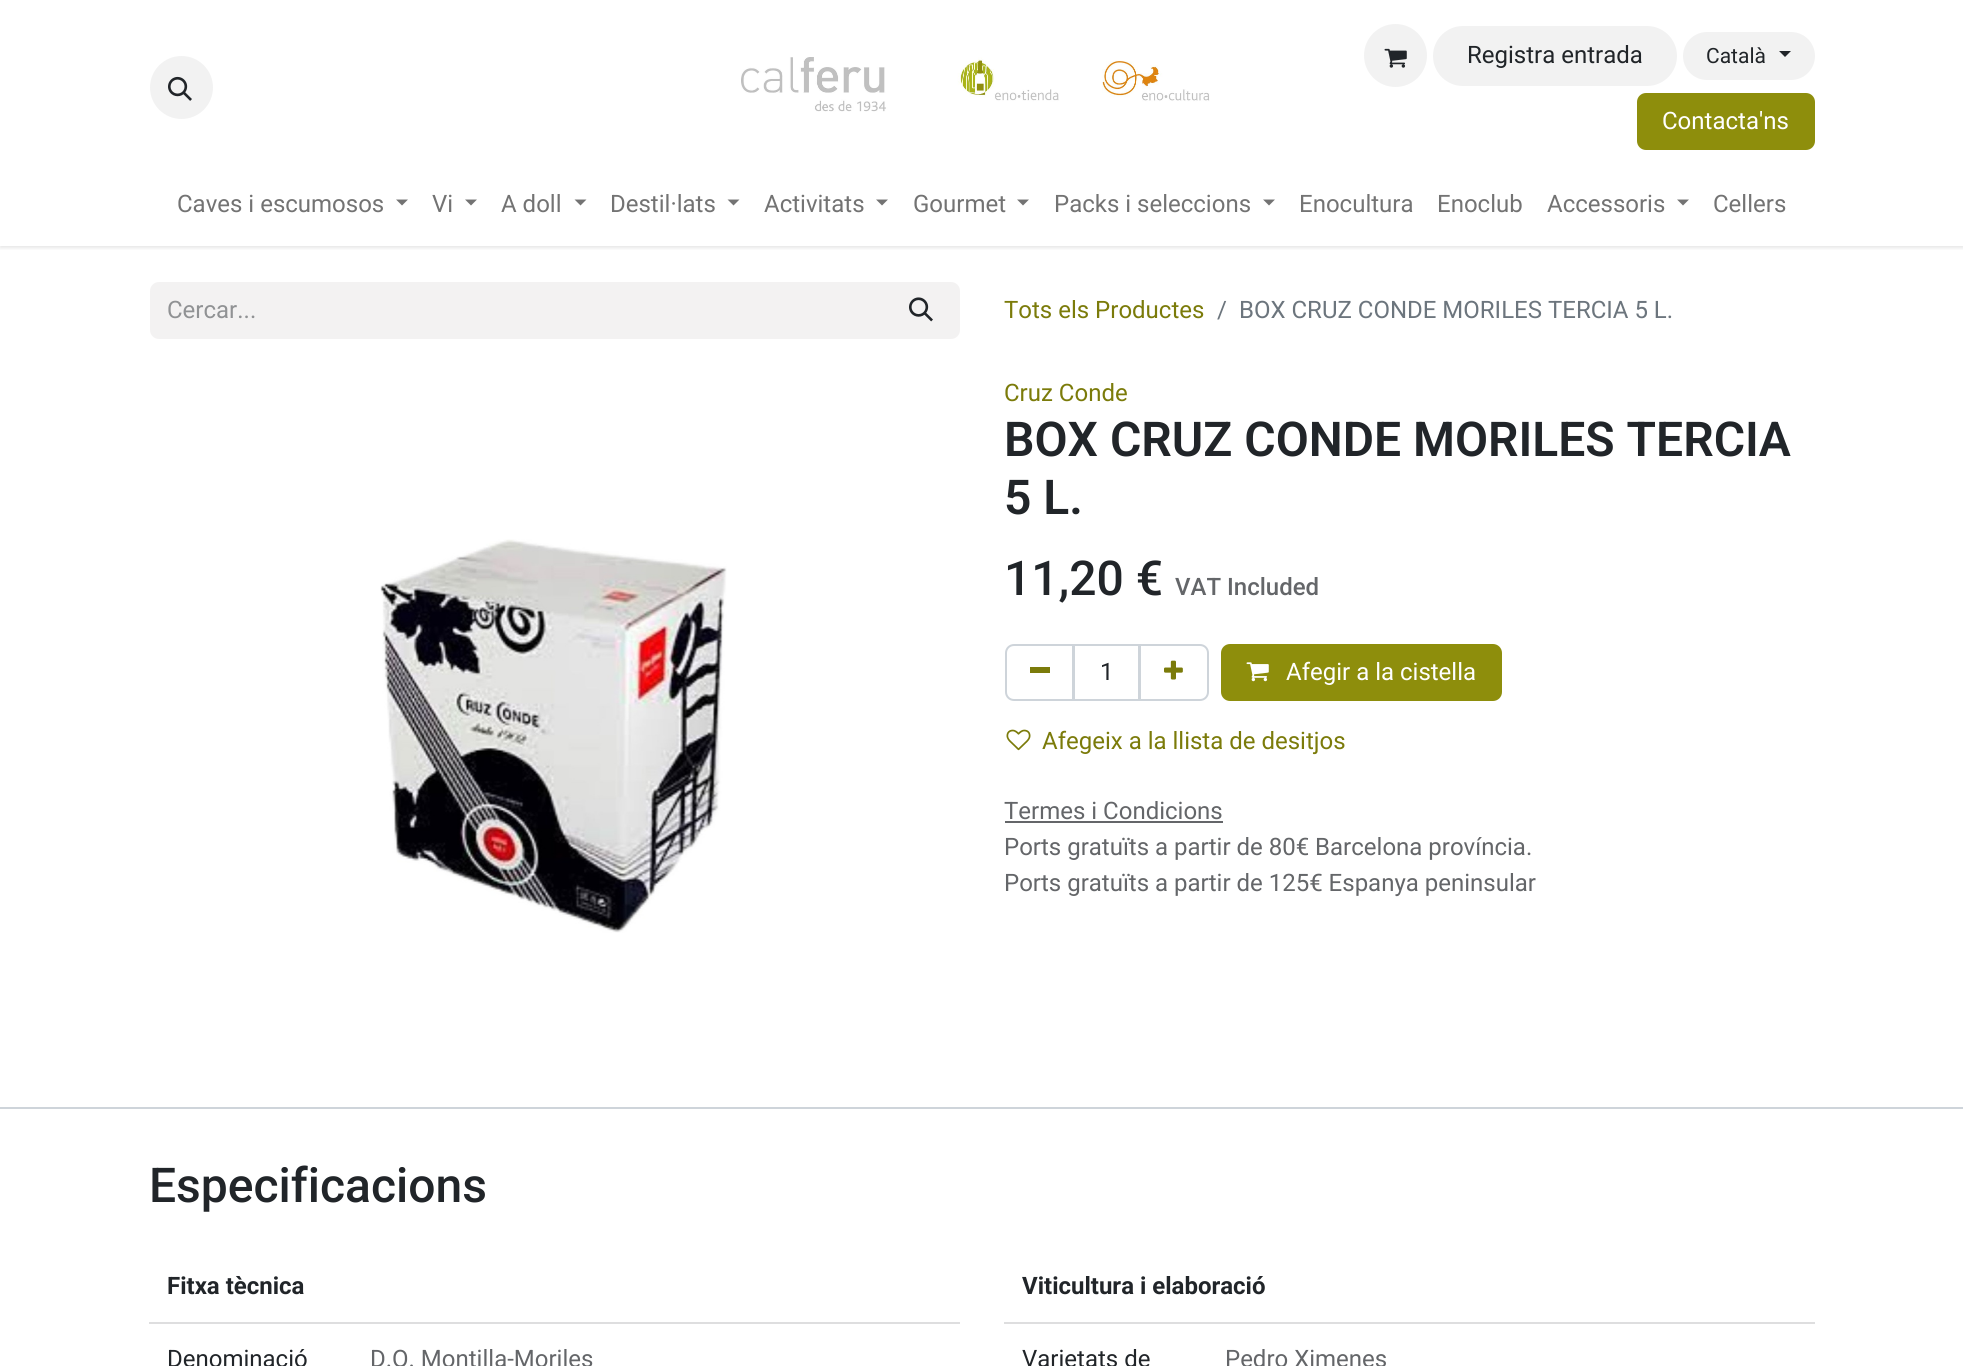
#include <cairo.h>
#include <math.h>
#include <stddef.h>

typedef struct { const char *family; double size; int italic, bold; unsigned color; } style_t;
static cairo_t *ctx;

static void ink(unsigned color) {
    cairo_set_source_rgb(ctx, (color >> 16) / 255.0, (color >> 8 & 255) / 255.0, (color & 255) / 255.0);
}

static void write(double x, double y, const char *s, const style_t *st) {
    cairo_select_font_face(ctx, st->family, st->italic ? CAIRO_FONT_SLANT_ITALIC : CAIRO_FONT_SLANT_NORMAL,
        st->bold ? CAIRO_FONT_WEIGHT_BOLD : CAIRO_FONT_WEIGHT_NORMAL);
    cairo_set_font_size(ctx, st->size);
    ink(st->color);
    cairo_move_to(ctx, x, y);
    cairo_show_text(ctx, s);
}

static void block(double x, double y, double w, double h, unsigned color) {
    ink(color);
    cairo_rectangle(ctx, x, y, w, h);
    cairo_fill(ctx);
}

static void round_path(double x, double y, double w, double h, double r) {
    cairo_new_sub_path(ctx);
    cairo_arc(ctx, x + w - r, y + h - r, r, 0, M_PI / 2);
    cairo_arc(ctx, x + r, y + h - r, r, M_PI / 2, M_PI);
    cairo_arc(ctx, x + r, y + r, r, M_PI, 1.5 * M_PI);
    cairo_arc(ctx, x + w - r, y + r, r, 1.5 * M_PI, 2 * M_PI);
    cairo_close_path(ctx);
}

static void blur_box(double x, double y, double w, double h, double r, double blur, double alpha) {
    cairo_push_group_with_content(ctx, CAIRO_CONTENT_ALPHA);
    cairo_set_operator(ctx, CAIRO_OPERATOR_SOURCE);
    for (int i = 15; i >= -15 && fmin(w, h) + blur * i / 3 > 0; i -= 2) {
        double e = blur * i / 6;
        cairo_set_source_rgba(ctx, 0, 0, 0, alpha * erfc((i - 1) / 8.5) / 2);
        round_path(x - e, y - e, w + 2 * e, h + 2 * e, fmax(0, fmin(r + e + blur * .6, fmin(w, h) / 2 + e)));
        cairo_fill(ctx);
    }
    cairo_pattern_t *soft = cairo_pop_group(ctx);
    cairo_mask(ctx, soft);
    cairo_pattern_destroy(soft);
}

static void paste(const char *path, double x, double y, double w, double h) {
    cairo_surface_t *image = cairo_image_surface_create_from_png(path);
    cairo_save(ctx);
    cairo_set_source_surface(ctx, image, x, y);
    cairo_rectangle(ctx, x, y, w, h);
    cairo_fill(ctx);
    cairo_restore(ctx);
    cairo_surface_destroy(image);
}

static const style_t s1 = {"Roboto", 24, 0, 0, 0x212529};
static const style_t s2 = {"Roboto", 21, 0, 0, 0x212529};
static const style_t s3 = {"Roboto", 24, 0, 0, 0xffffff};
static const style_t s4 = {"Roboto", 24, 0, 0, 0x737373};
static const style_t s5 = {"Roboto", 24, 0, 0, 0x909294};
static const style_t s6 = {"Roboto", 24, 0, 0, 0x7b7b0a};
static const style_t s7 = {"Roboto", 24, 0, 0, 0x6c757d};
static const style_t s8 = {"Roboto SemiBold", 48, 0, 0, 0x212529};
static const style_t s9 = {"Roboto Medium", 48, 0, 0, 0x212529};
static const style_t s10 = {"Roboto Medium", 24, 0, 0, 0x646669};
static const style_t s11 = {"Roboto", 24, 0, 0, 0x646669};
static const style_t s12 = {"Roboto", 24, 0, 1, 0x212529};

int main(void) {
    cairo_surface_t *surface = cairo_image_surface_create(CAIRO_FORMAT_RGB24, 1963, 1366);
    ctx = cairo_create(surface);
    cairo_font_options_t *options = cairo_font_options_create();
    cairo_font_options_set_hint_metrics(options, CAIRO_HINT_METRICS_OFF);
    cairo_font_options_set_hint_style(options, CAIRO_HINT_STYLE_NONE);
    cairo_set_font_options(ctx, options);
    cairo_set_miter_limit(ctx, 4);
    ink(0xffffff);
    cairo_paint(ctx);
    cairo_save(ctx);
    cairo_rectangle(ctx, 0, 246, 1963, 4);
    cairo_clip(ctx);
    ink(0x000000);
    blur_box(0, 2, 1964, 246, 0, 2, 0.1);
    cairo_restore(ctx);
    ink(0xf2f2f2);
    cairo_arc(ctx, 181.5, 87.5, 31.5, 0, 2 * M_PI);
    cairo_fill(ctx);
    paste("pic1.png", 168, 76, 24, 25);
    paste("pic2.png", 741, 57, 469, 55);
    cairo_arc(ctx, 1395.5, 55.5, 31.5, 0, 2 * M_PI);
    cairo_fill(ctx);
    paste("pic3.png", 1384, 48, 23, 20);
    round_path(1433, 26, 244, 60, 30);
    cairo_fill(ctx);
    write(1467, 63, "Registra entrada", &s1);
    ink(0xf2f2f2);
    round_path(1683, 32, 132, 48, 24);
    cairo_fill(ctx);
    write(1706, 63, "Català", &s2);
    cairo_new_path(ctx);
    cairo_move_to(ctx, 1779, 51);
    cairo_line_to(ctx, 1791, 51);
    cairo_line_to(ctx, 1785, 57);
    cairo_close_path(ctx);
    cairo_fill(ctx);
    ink(0x8e8e0c);
    round_path(1638, 94, 176, 55, 8);
    cairo_fill_preserve(ctx);
    cairo_stroke(ctx);
    write(1662, 129, "Contacta'ns", &s3);
    write(177, 212, "Caves i escumosos", &s4);
    cairo_new_path(ctx);
    cairo_move_to(ctx, 396, 199.5);
    cairo_line_to(ctx, 408, 199.5);
    cairo_line_to(ctx, 402, 205.5);
    cairo_close_path(ctx);
    cairo_fill(ctx);
    write(432, 212, "Vi", &s4);
    cairo_new_path(ctx);
    cairo_move_to(ctx, 465, 199.5);
    cairo_line_to(ctx, 477, 199.5);
    cairo_line_to(ctx, 471, 205.5);
    cairo_close_path(ctx);
    cairo_fill(ctx);
    write(501, 212, "A doll", &s4);
    cairo_new_path(ctx);
    cairo_move_to(ctx, 574.5, 199.5);
    cairo_line_to(ctx, 586.5, 199.5);
    cairo_line_to(ctx, 580.5, 205.5);
    cairo_close_path(ctx);
    cairo_fill(ctx);
    write(610, 212, "Destil·lats", &s4);
    cairo_new_path(ctx);
    cairo_move_to(ctx, 727.5, 199.5);
    cairo_line_to(ctx, 739.5, 199.5);
    cairo_line_to(ctx, 733.5, 205.5);
    cairo_close_path(ctx);
    cairo_fill(ctx);
    write(764, 212, "Activitats", &s4);
    cairo_new_path(ctx);
    cairo_move_to(ctx, 876, 199.5);
    cairo_line_to(ctx, 888, 199.5);
    cairo_line_to(ctx, 882, 205.5);
    cairo_close_path(ctx);
    cairo_fill(ctx);
    write(913, 212, "Gourmet", &s4);
    cairo_new_path(ctx);
    cairo_move_to(ctx, 1017, 199.5);
    cairo_line_to(ctx, 1029, 199.5);
    cairo_line_to(ctx, 1023, 205.5);
    cairo_close_path(ctx);
    cairo_fill(ctx);
    write(1054, 212, "Packs i seleccions", &s4);
    cairo_new_path(ctx);
    cairo_move_to(ctx, 1263, 199.5);
    cairo_line_to(ctx, 1275, 199.5);
    cairo_line_to(ctx, 1269, 205.5);
    cairo_close_path(ctx);
    cairo_fill(ctx);
    write(1299, 212, "Enocultura", &s4);
    write(1437, 212, "Enoclub", &s4);
    write(1547, 212, "Accessoris", &s4);
    cairo_new_path(ctx);
    cairo_move_to(ctx, 1677, 199.5);
    cairo_line_to(ctx, 1689, 199.5);
    cairo_line_to(ctx, 1683, 205.5);
    cairo_close_path(ctx);
    cairo_fill(ctx);
    write(1713, 212, "Cellers", &s4);
    ink(0xf3f2f2);
    cairo_new_path(ctx);
    cairo_move_to(ctx, 159, 282);
    cairo_line_to(ctx, 885, 282);
    cairo_line_to(ctx, 885, 339);
    cairo_line_to(ctx, 159, 339);
    cairo_curve_to(ctx, 154, 339, 150, 335, 150, 330);
    cairo_line_to(ctx, 150, 291);
    cairo_curve_to(ctx, 150, 286, 154, 282, 159, 282);
    cairo_close_path(ctx);
    cairo_fill(ctx);
    write(167, 318, "Cercar...", &s5);
    ink(0xf3f2f2);
    cairo_new_path(ctx);
    cairo_move_to(ctx, 885, 283);
    cairo_line_to(ctx, 951, 283);
    cairo_curve_to(ctx, 955.5, 283, 959, 286.5, 959, 291);
    cairo_line_to(ctx, 959, 330);
    cairo_curve_to(ctx, 959, 334.5, 955.5, 338, 951, 338);
    cairo_line_to(ctx, 885, 338);
    cairo_close_path(ctx);
    cairo_fill_preserve(ctx);
    cairo_stroke(ctx);
    paste("pic4.png", 909, 297, 24, 25);
    write(1004, 318, "Tots els Productes", &s6);
    write(1217, 318, "/", &s7);
    write(1239, 318, "BOX CRUZ CONDE MORILES TERCIA 5 L.", &s7);
    paste("pic5.png", 380, 539, 347, 394);
    write(1004, 401, "Cruz Conde", &s6);
    write(1004, 456, "BOX CRUZ CONDE MORILES TERCIA", &s8);
    write(1004, 514, "5 L.", &s8);
    write(1004, 595, "11,20 €", &s9);
    write(1175, 595, "VAT Included", &s10);
    cairo_rectangle(ctx, 1074, 645, 65, 55);
    ink(0xced4da);
    cairo_stroke(ctx);
    cairo_new_path(ctx);
    cairo_move_to(ctx, 1014, 645);
    cairo_line_to(ctx, 1073, 645);
    cairo_line_to(ctx, 1073, 700);
    cairo_line_to(ctx, 1014, 700);
    cairo_curve_to(ctx, 1009.5, 700, 1006, 696.5, 1006, 692);
    cairo_line_to(ctx, 1006, 653);
    cairo_curve_to(ctx, 1006, 648.5, 1009.5, 645, 1014, 645);
    cairo_close_path(ctx);
    cairo_stroke(ctx);
    block(1030, 667, 20, 6, 0x7b7b0a);
    write(1100, 680, "1", &s1);
    cairo_new_path(ctx);
    cairo_move_to(ctx, 1140, 645);
    cairo_line_to(ctx, 1200, 645);
    cairo_curve_to(ctx, 1204.5, 645, 1208, 648.5, 1208, 653);
    cairo_line_to(ctx, 1208, 692);
    cairo_curve_to(ctx, 1208, 696.5, 1204.5, 700, 1200, 700);
    cairo_line_to(ctx, 1140, 700);
    cairo_close_path(ctx);
    ink(0xced4da);
    cairo_stroke(ctx);
    paste("pic6.png", 1164, 660, 19, 20);
    ink(0x8e8e0c);
    round_path(1222, 645, 279, 55, 8);
    cairo_fill_preserve(ctx);
    cairo_stroke(ctx);
    paste("pic7.png", 1246, 662, 23, 20);
    write(1286, 680, "Afegir a la cistella", &s3);
    paste("pic8.png", 1006, 729, 25, 22);
    write(1042, 749, "Afegeix a la llista de desitjos", &s6);
    write(1004, 819, "Termes i Condicions", &s11);
    block(1005, 821, 218, 2, 0x646669);
    write(1004, 855, "Ports gratuïts a partir de 80€ Barcelona província.", &s11);
    write(1004, 891, "Ports gratuïts a partir de 125€ Espanya peninsular", &s11);
    block(0, 1107, 1963, 2, 0xced4da);
    write(149, 1202, "Especificacions", &s9);
    block(149, 1322, 811, 2, 0xdededf);
    write(167, 1294, "Fitxa tècnica", &s12);
    write(167, 1367, "Denominació", &s1);
    write(370, 1367, "D.O. Montilla-Moriles", &s11);
    block(1004, 1322, 811, 2, 0xdededf);
    write(1022, 1294, "Viticultura i elaboració", &s12);
    write(1022, 1367, "Varietats de", &s1);
    write(1225, 1367, "Pedro Ximenes", &s11);
    cairo_surface_write_to_png(surface, "screenshot.png");
    cairo_font_options_destroy(options);
    cairo_destroy(ctx);
    cairo_surface_destroy(surface);
    return 0;
}
